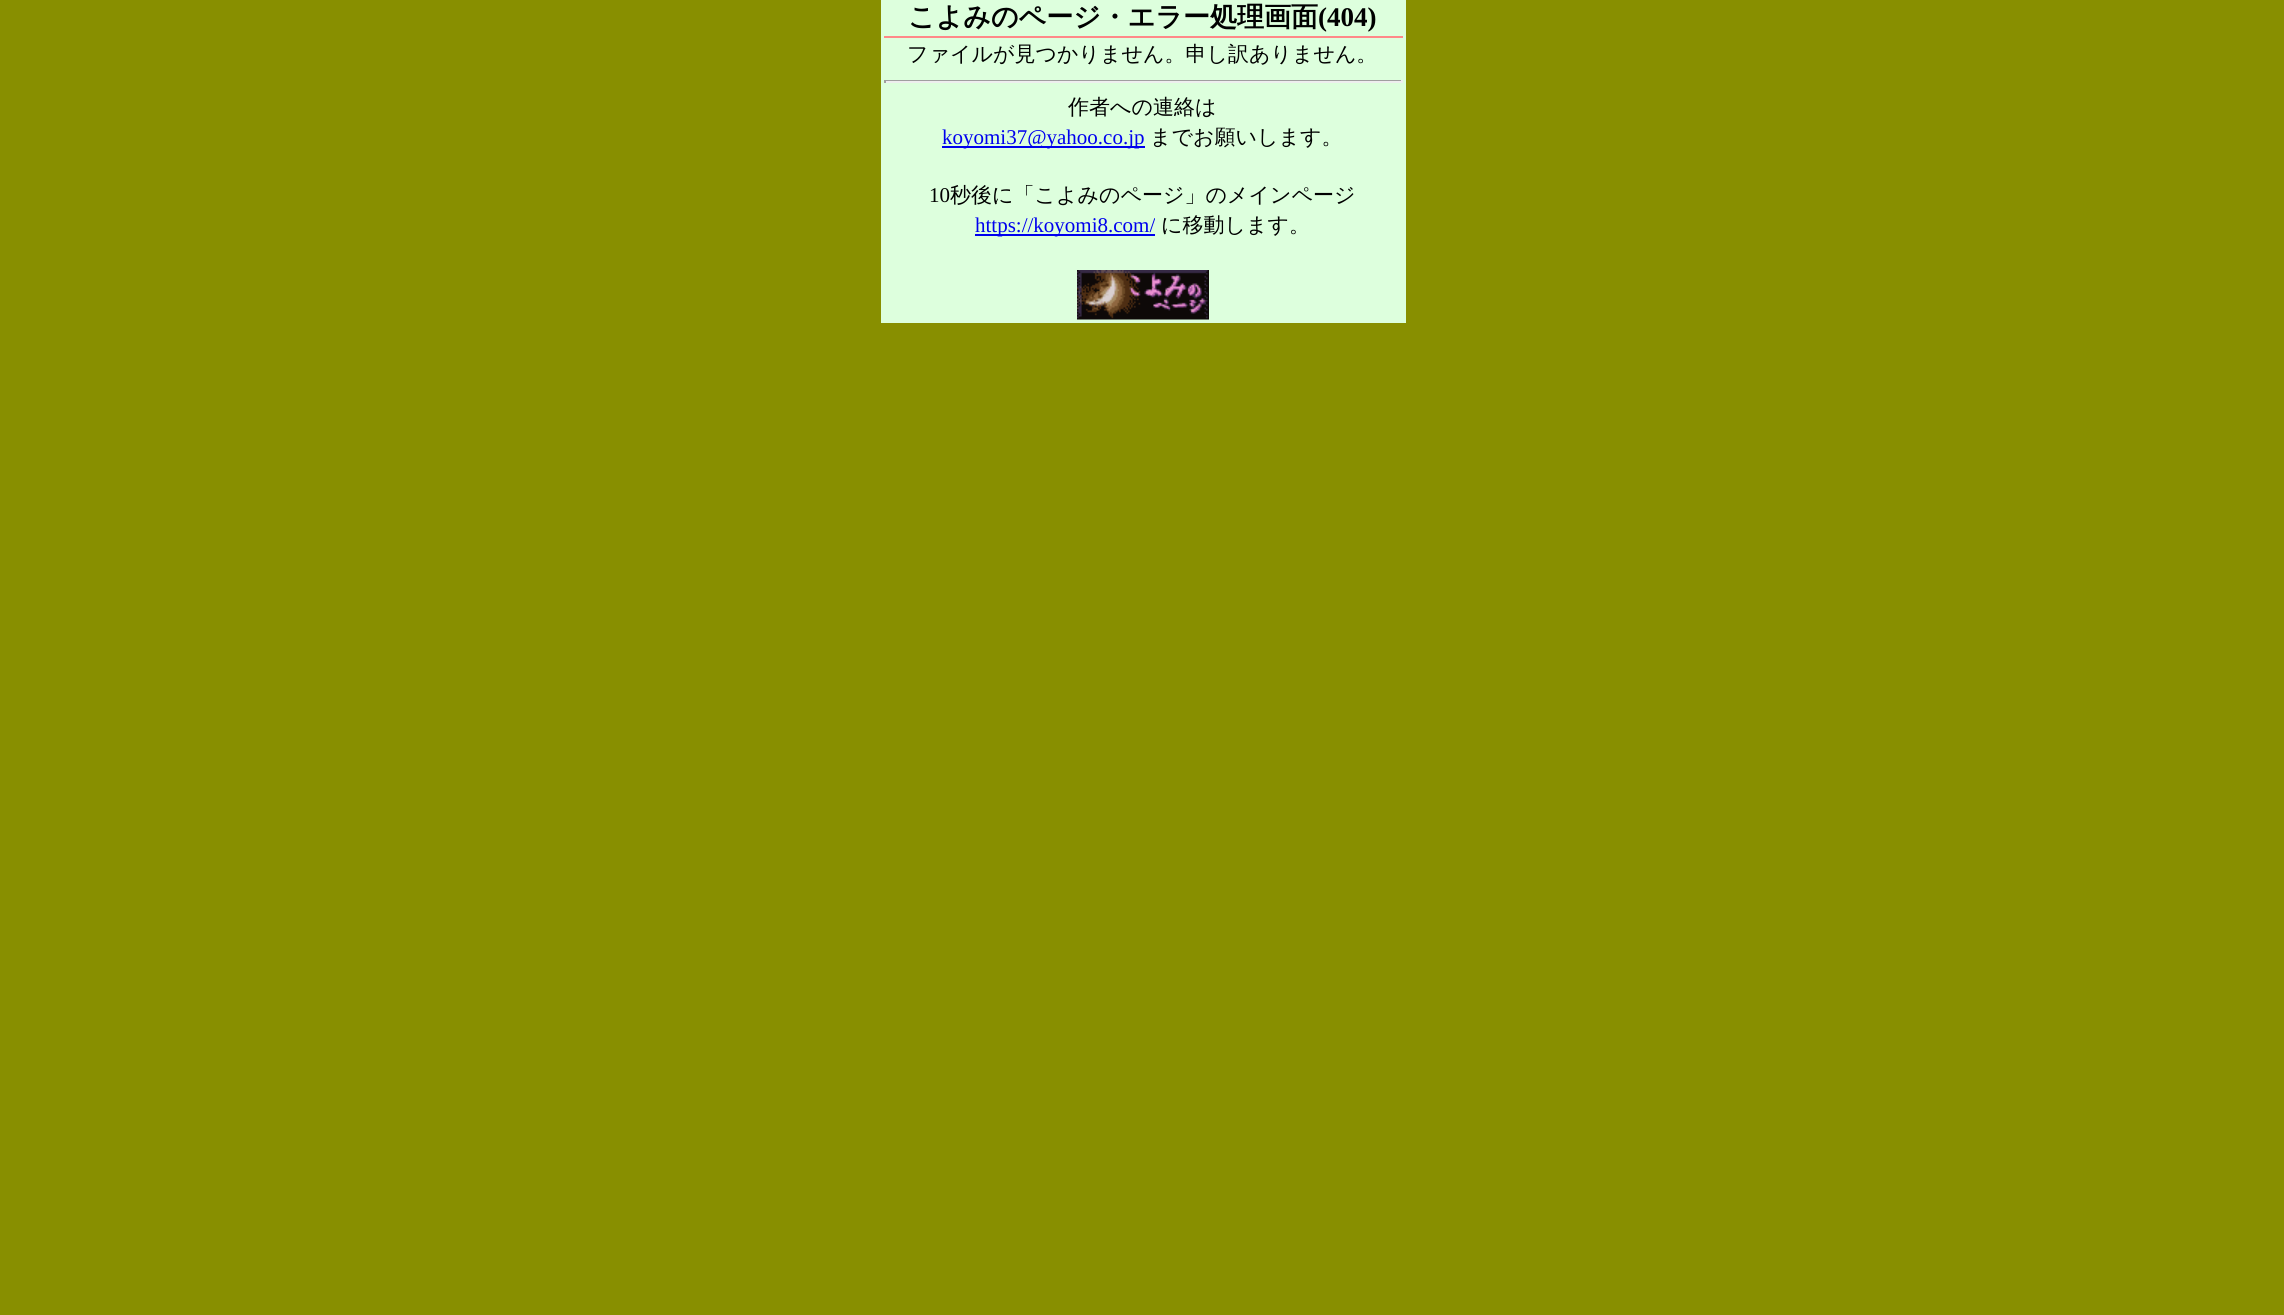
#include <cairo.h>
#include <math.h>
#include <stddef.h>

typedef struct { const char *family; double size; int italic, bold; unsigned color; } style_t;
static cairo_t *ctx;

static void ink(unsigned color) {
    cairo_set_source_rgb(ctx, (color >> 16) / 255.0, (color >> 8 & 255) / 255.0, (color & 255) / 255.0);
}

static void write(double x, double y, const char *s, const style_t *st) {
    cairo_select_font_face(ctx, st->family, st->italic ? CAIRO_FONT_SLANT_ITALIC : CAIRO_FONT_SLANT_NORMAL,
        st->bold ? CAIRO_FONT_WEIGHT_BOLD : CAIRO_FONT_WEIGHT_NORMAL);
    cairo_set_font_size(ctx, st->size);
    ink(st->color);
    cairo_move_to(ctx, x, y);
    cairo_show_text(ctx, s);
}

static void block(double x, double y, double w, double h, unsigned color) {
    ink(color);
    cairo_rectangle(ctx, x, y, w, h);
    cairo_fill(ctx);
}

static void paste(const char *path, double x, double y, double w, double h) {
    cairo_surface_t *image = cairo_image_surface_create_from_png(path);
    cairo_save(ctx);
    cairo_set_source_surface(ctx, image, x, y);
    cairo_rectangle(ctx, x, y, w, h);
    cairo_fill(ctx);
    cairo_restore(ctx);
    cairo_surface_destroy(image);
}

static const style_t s1 = {"WenQuanYi Zen Hei", 27, 0, 1, 0x000000};
static const style_t s2 = {"Liberation Serif", 27, 0, 1, 0x000000};
static const style_t s3 = {"WenQuanYi Zen Hei Medium", 21, 0, 0, 0x000000};
static const style_t s4 = {"Liberation Serif", 21, 0, 0, 0x0000ee};
static const style_t s5 = {"Liberation Serif", 21, 0, 0, 0x000000};

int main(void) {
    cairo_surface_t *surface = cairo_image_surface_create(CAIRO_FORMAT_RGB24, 2284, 1315);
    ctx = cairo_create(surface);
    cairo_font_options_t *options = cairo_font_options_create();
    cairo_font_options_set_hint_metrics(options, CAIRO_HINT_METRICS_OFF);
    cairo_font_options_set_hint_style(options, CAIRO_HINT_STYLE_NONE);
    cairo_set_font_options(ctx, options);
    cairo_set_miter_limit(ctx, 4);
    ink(0x888f00);
    cairo_paint(ctx);
    block(881, 0, 525, 323, 0xddffdd);
    write(908, 26, "こよみのページ・エラー処理画面", &s1);
    write(1318, 26, "(404)", &s2);
    block(884, 36, 519, 2, 0xff8888);
    write(907, 61, "ファイルが見つかりません。申し訳ありません。", &s3);
    block(884, 80, 519, 1, 0x9f9f9f);
    block(1401, 80, 2, 3, 0xeeeeee);
    block(884, 81, 519, 2, 0xeeeeee);
    block(884, 80, 2, 3, 0x9f9f9f);
    write(1068, 114, "作者への連絡は", &s3);
    block(942, 146, 203, 2, 0x0000ee);
    write(942, 144, "koyomi37@yahoo.co.jp", &s4);
    write(1150, 144, "までお願いします。", &s3);
    write(929, 202, "10", &s5);
    write(950, 202, "秒後に「こよみのページ」のメインページ", &s3);
    block(975, 234, 180, 2, 0x0000ee);
    write(975, 232, "https://koyomi8.com/", &s4);
    write(1161, 232, "に移動します。", &s3);
    paste("pic1.png", 1077, 270, 132, 50);
    cairo_surface_write_to_png(surface, "screenshot.png");
    cairo_font_options_destroy(options);
    cairo_destroy(ctx);
    cairo_surface_destroy(surface);
    return 0;
}
